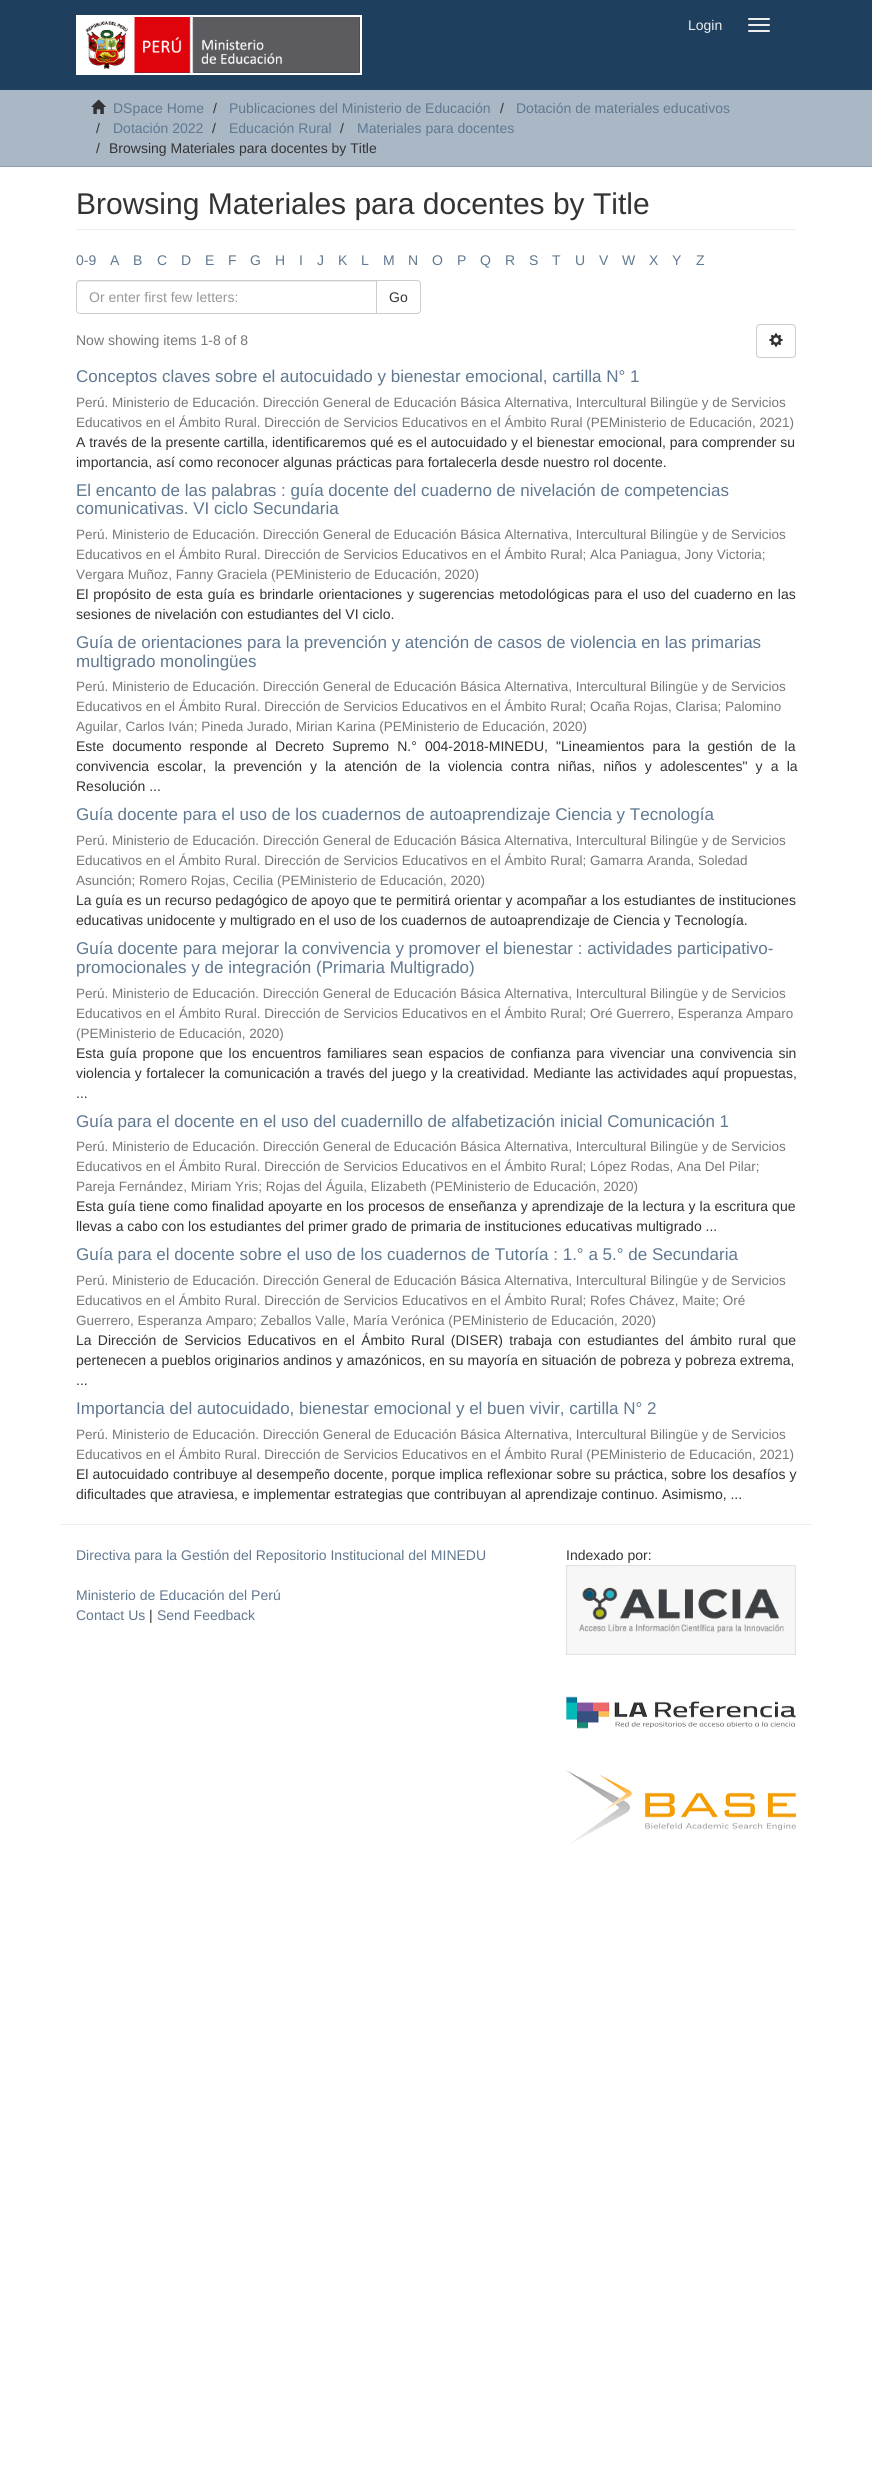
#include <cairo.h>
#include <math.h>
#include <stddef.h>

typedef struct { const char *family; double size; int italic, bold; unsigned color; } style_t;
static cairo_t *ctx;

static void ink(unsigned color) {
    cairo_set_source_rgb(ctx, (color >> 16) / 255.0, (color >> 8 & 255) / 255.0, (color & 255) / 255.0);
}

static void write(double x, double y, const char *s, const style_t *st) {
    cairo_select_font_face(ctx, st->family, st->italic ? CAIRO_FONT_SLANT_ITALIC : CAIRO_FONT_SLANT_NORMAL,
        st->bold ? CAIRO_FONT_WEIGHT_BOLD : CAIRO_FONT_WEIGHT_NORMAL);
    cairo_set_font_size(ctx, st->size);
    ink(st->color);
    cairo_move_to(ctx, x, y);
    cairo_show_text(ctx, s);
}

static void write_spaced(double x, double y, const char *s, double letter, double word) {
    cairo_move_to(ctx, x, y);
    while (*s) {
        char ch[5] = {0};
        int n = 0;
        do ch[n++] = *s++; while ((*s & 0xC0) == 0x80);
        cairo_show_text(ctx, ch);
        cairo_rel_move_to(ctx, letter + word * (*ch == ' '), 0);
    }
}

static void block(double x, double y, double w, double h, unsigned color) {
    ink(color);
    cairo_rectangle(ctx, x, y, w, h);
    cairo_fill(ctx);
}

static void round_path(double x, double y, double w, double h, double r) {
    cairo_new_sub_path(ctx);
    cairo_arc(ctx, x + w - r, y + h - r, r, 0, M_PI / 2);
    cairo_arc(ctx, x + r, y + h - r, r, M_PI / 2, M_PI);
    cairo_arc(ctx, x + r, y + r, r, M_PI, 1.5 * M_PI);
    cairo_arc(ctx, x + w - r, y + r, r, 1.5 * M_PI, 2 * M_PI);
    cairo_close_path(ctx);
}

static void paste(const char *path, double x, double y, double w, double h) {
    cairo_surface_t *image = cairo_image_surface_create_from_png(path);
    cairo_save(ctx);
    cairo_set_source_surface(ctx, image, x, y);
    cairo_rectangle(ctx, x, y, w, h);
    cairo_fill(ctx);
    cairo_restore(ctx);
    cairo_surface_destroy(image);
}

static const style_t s1 = {"Liberation Sans", 14, 0, 0, 0xeeeeee};
static const style_t s2 = {"Liberation Sans", 14, 0, 0, 0x607890};
static const style_t s3 = {"Liberation Sans", 14, 0, 0, 0x333333};
static const style_t s4 = {"Liberation Sans", 30, 0, 0, 0x333333};
static const style_t s5 = {"Liberation Sans", 14, 0, 0, 0x999999};
static const style_t s6 = {"Liberation Sans", 14, 0, 0, 0x777777};
static const style_t s7 = {"Liberation Sans", 17, 0, 0, 0x607890};
static const style_t s8 = {"Liberation Sans", 13.5, 0, 0, 0x777777};

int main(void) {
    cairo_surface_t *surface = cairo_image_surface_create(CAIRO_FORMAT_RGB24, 872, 2480);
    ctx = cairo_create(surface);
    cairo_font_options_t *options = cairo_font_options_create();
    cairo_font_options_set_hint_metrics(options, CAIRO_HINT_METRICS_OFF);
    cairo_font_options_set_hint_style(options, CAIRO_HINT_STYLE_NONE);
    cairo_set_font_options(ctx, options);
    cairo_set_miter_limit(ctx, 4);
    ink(0xffffff);
    cairo_paint(ctx);
    block(0, 0, 872, 90, 0x1f3f5e);
    paste("pic1.png", 76, 15, 286, 60);
    write(688, 30, "Login", &s1);
    round_path(748, 18, 22, 2, 1);
    cairo_fill(ctx);
    round_path(748, 24, 22, 2, 1);
    cairo_fill(ctx);
    round_path(748, 30, 22, 2, 1);
    cairo_fill(ctx);
    block(0, 90, 872, 76, 0xaab8c6);
    block(0, 166, 872, 1, 0x8b9eb2);
    paste("pic2.png", 91, 99, 15, 15);
    write(113, 113, "DSpace Home", &s2);
    write(213, 113, "/", &s3);
    write(229, 113, "Publicaciones del Ministerio de Educación", &s2);
    write(500, 113, "/", &s3);
    write(516, 113, "Dotación de materiales educativos", &s2);
    write(96, 133, "/", &s3);
    write(113, 133, "Dotación 2022", &s2);
    write(212, 133, "/", &s3);
    write(229, 133, "Educación Rural", &s2);
    write(340, 133, "/", &s3);
    write(357, 133, "Materiales para docentes", &s2);
    write(96, 153, "/", &s3);
    write(109, 153, "Browsing Materiales para docentes by Title", &s3);
    block(76, 229, 720, 1, 0xeeeeee);
    write(76, 214, "Browsing Materiales para docentes by Title", &s4);
    write(76, 265, "0-9", &s2);
    write(110, 265, "A", &s2);
    write(133, 265, "B", &s2);
    write(157, 265, "C", &s2);
    write(181, 265, "D", &s2);
    write(205, 265, "E", &s2);
    write(228, 265, "F", &s2);
    write(250, 265, "G", &s2);
    write(275, 265, "H", &s2);
    write(299, 265, "I", &s2);
    write(317, 265, "J", &s2);
    write(338, 265, "K", &s2);
    write(361, 265, "L", &s2);
    write(383, 265, "M", &s2);
    write(408, 265, "N", &s2);
    write(432, 265, "O", &s2);
    write(457, 265, "P", &s2);
    write(480, 265, "Q", &s2);
    write(505, 265, "R", &s2);
    write(529, 265, "S", &s2);
    write(552, 265, "T", &s2);
    write(575, 265, "U", &s2);
    write(599, 265, "V", &s2);
    write(622, 265, "W", &s2);
    write(649, 265, "X", &s2);
    write(672, 265, "Y", &s2);
    write(696, 265, "Z", &s2);
    cairo_new_path(ctx);
    cairo_move_to(ctx, 376.5, 280.5);
    cairo_line_to(ctx, 417, 280.5);
    cairo_curve_to(ctx, 419, 280.5, 420.5, 282, 420.5, 284);
    cairo_line_to(ctx, 420.5, 310);
    cairo_curve_to(ctx, 420.5, 312, 419, 313.5, 417, 313.5);
    cairo_line_to(ctx, 376.5, 313.5);
    cairo_close_path(ctx);
    ink(0xcccccc);
    cairo_set_line_width(ctx, 1);
    cairo_stroke(ctx);
    ink(0xffffff);
    cairo_new_path(ctx);
    cairo_move_to(ctx, 80, 280);
    cairo_line_to(ctx, 377, 280);
    cairo_line_to(ctx, 377, 314);
    cairo_line_to(ctx, 80, 314);
    cairo_curve_to(ctx, 78, 314, 76, 312, 76, 310);
    cairo_line_to(ctx, 76, 284);
    cairo_curve_to(ctx, 76, 282, 78, 280, 80, 280);
    cairo_close_path(ctx);
    cairo_fill(ctx);
    ink(0xececec);
    cairo_new_path(ctx);
    cairo_move_to(ctx, 80, 282);
    cairo_line_to(ctx, 376, 282);
    cairo_line_to(ctx, 376, 281);
    cairo_line_to(ctx, 80, 281);
    cairo_curve_to(ctx, 78, 281, 77, 283, 77, 285);
    cairo_curve_to(ctx, 77, 283, 78, 282, 80, 282);
    cairo_close_path(ctx);
    cairo_fill(ctx);
    cairo_new_path(ctx);
    cairo_move_to(ctx, 80, 280.5);
    cairo_line_to(ctx, 376.5, 280.5);
    cairo_line_to(ctx, 376.5, 313.5);
    cairo_line_to(ctx, 80, 313.5);
    cairo_curve_to(ctx, 78, 313.5, 76.5, 312, 76.5, 310);
    cairo_line_to(ctx, 76.5, 284);
    cairo_curve_to(ctx, 76.5, 282, 78, 280.5, 80, 280.5);
    cairo_close_path(ctx);
    ink(0xcccccc);
    cairo_stroke(ctx);
    write(89, 302, "Or enter first few letters:", &s5);
    write(389, 302, "Go", &s3);
    write(76, 345, "Now showing items 1-8 of 8", &s6);
    round_path(756.5, 324.5, 39, 33, 3.5);
    ink(0xcccccc);
    cairo_stroke(ctx);
    paste("pic3.png", 769, 333, 14, 14);
    write(76, 382, "Conceptos claves sobre el autocuidado y bienestar emocional, cartilla N° 1", &s7);
    write(76, 407, "Perú. Ministerio de Educación. Dirección General de Educación Básica Alternativa, Intercultural Bilingüe y de Servicios", &s8);
    write(76, 427, "Educativos en el Ámbito Rural. Dirección de Servicios Educativos en el Ámbito Rural (PEMinisterio de Educación, 2021)", &s8);
    write(76, 447, "A través de la presente cartilla, identificaremos qué es el autocuidado y el bienestar emocional, para comprender su", &s3);
    write(76, 467, "importancia, así como reconocer algunas prácticas para fortalecerla desde nuestro rol docente.", &s3);
    write(76, 496, "El encanto de las palabras : guía docente del cuaderno de nivelación de competencias", &s7);
    write(76, 514, "comunicativas. VI ciclo Secundaria", &s7);
    write(76, 539, "Perú. Ministerio de Educación. Dirección General de Educación Básica Alternativa, Intercultural Bilingüe y de Servicios", &s8);
    write(76, 559, "Educativos en el Ámbito Rural. Dirección de Servicios Educativos en el Ámbito Rural; Alca Paniagua, Jony Victoria;", &s8);
    write(76, 579, "Vergara Muñoz, Fanny Graciela (PEMinisterio de Educación, 2020)", &s8);
    cairo_set_font_size(ctx, 14);
    ink(0x333333);
    write_spaced(76, 599, "El propósito de esta guía es brindarle orientaciones y sugerencias metodológicas para el uso del cuaderno en las", 0, 1);
    write(76, 619, "sesiones de nivelación con estudiantes del VI ciclo.", &s3);
    write(76, 648, "Guía de orientaciones para la prevención y atención de casos de violencia en las primarias", &s7);
    write(76, 667, "multigrado monolingües", &s7);
    write(76, 691, "Perú. Ministerio de Educación. Dirección General de Educación Básica Alternativa, Intercultural Bilingüe y de Servicios", &s8);
    write(76, 711, "Educativos en el Ámbito Rural. Dirección de Servicios Educativos en el Ámbito Rural; Ocaña Rojas, Clarisa; Palomino", &s8);
    write(76, 731, "Aguilar, Carlos Iván; Pineda Jurado, Mirian Karina (PEMinisterio de Educación, 2020)", &s8);
    cairo_set_font_size(ctx, 14);
    ink(0x333333);
    write_spaced(76, 751, "Este documento responde al Decreto Supremo N.° 004-2018-MINEDU, \"Lineamientos para la gestión de la", 0, 4.25);
    write_spaced(76, 771, "convivencia escolar, la prevención y la atención de la violencia contra niñas, niños y adolescentes\" y a la", 0, 4.25);
    write(76, 791, "Resolución ...", &s3);
    write(76, 820, "Guía docente para el uso de los cuadernos de autoaprendizaje Ciencia y Tecnología", &s7);
    write(76, 845, "Perú. Ministerio de Educación. Dirección General de Educación Básica Alternativa, Intercultural Bilingüe y de Servicios", &s8);
    write(76, 865, "Educativos en el Ámbito Rural. Dirección de Servicios Educativos en el Ámbito Rural; Gamarra Aranda, Soledad", &s8);
    write(76, 885, "Asunción; Romero Rojas, Cecilia (PEMinisterio de Educación, 2020)", &s8);
    write(76, 905, "La guía es un recurso pedagógico de apoyo que te permitirá orientar y acompañar a los estudiantes de instituciones", &s3);
    write(76, 925, "educativas unidocente y multigrado en el uso de los cuadernos de autoaprendizaje de Ciencia y Tecnología.", &s3);
    write(76, 954, "Guía docente para mejorar la convivencia y promover el bienestar : actividades participativo-", &s7);
    write(76, 973, "promocionales y de integración (Primaria Multigrado)", &s7);
    write(76, 998, "Perú. Ministerio de Educación. Dirección General de Educación Básica Alternativa, Intercultural Bilingüe y de Servicios", &s8);
    write(76, 1018, "Educativos en el Ámbito Rural. Dirección de Servicios Educativos en el Ámbito Rural; Oré Guerrero, Esperanza Amparo", &s8);
    write(76, 1038, "(PEMinisterio de Educación, 2020)", &s8);
    cairo_set_font_size(ctx, 14);
    ink(0x333333);
    write_spaced(76, 1058, "Esta guía propone que los encuentros familiares sean espacios de confianza para vivenciar una convivencia sin", 0, 1.75);
    write_spaced(76, 1078, "violencia y fortalecer la comunicación a través del juego y la creatividad. Mediante las actividades aquí propuestas,", 0, 0.5);
    write(76, 1098, "...", &s3);
    write(76, 1127, "Guía para el docente en el uso del cuadernillo de alfabetización inicial Comunicación 1", &s7);
    write(76, 1151, "Perú. Ministerio de Educación. Dirección General de Educación Básica Alternativa, Intercultural Bilingüe y de Servicios", &s8);
    write(76, 1171, "Educativos en el Ámbito Rural. Dirección de Servicios Educativos en el Ámbito Rural; López Rodas, Ana Del Pilar;", &s8);
    write(76, 1191, "Pareja Fernández, Miriam Yris; Rojas del Águila, Elizabeth (PEMinisterio de Educación, 2020)", &s8);
    cairo_set_font_size(ctx, 14);
    ink(0x333333);
    write_spaced(76, 1211, "Esta guía tiene como finalidad apoyarte en los procesos de enseñanza y aprendizaje de la lectura y la escritura que", 0, 0.1);
    write(76, 1231, "llevas a cabo con los estudiantes del primer grado de primaria de instituciones educativas multigrado ...", &s3);
    write(76, 1260, "Guía para el docente sobre el uso de los cuadernos de Tutoría : 1.° a 5.° de Secundaria", &s7);
    write(76, 1285, "Perú. Ministerio de Educación. Dirección General de Educación Básica Alternativa, Intercultural Bilingüe y de Servicios", &s8);
    write(76, 1305, "Educativos en el Ámbito Rural. Dirección de Servicios Educativos en el Ámbito Rural; Rofes Chávez, Maite; Oré", &s8);
    write(76, 1325, "Guerrero, Esperanza Amparo; Zeballos Valle, María Verónica (PEMinisterio de Educación, 2020)", &s8);
    cairo_set_font_size(ctx, 14);
    ink(0x333333);
    write_spaced(76, 1345, "La Dirección de Servicios Educativos en el Ámbito Rural (DISER) trabaja con estudiantes del ámbito rural que", 0, 2.4);
    write(76, 1365, "pertenecen a pueblos originarios andinos y amazónicos, en su mayoría en situación de pobreza y pobreza extrema,", &s3);
    write(76, 1385, "...", &s3);
    write(76, 1414, "Importancia del autocuidado, bienestar emocional y el buen vivir, cartilla N° 2", &s7);
    write(76, 1439, "Perú. Ministerio de Educación. Dirección General de Educación Básica Alternativa, Intercultural Bilingüe y de Servicios", &s8);
    write(76, 1459, "Educativos en el Ámbito Rural. Dirección de Servicios Educativos en el Ámbito Rural (PEMinisterio de Educación, 2021)", &s8);
    cairo_set_font_size(ctx, 14);
    ink(0x333333);
    write_spaced(76, 1479, "El autocuidado contribuye al desempeño docente, porque implica reflexionar sobre su práctica, sobre los desafíos y", 0, 0.2);
    write(76, 1499, "dificultades que atraviesa, e implementar estrategias que contribuyan al aprendizaje continuo. Asimismo, ...", &s3);
    block(61, 1524, 750, 1, 0xeeeeee);
    write(76, 1560, "Directiva para la Gestión del Repositorio Institucional del MINEDU", &s2);
    write(76, 1600, "Ministerio de Educación del Perú", &s2);
    write(76, 1620, "Contact Us", &s2);
    write(149, 1620, "|", &s3);
    write(157, 1620, "Send Feedback", &s2);
    write(566, 1560, "Indexado por:", &s3);
    paste("pic4.png", 566, 1565, 230, 90);
    paste("pic5.png", 566, 1696, 230, 33);
    paste("pic6.png", 566, 1770, 230, 74);
    cairo_surface_write_to_png(surface, "screenshot.png");
    cairo_font_options_destroy(options);
    cairo_destroy(ctx);
    cairo_surface_destroy(surface);
    return 0;
}
